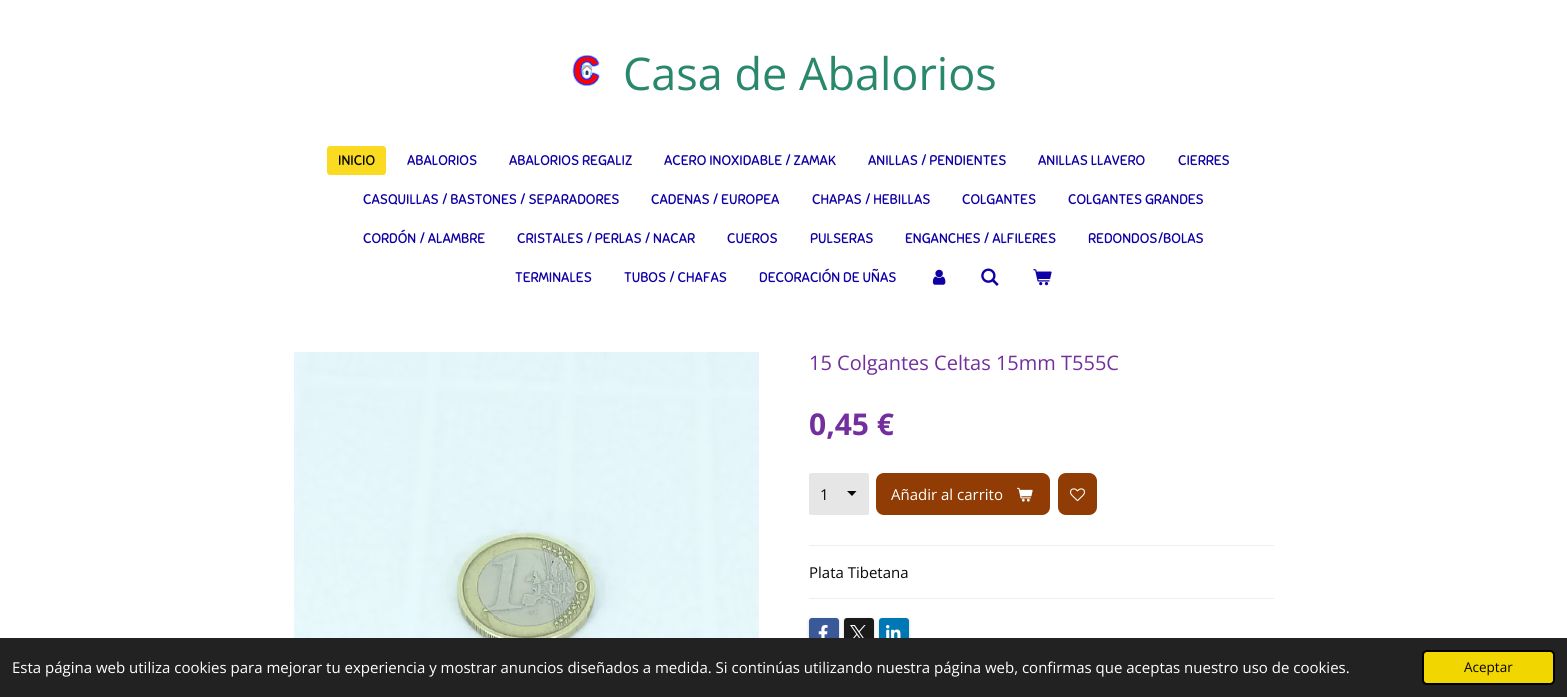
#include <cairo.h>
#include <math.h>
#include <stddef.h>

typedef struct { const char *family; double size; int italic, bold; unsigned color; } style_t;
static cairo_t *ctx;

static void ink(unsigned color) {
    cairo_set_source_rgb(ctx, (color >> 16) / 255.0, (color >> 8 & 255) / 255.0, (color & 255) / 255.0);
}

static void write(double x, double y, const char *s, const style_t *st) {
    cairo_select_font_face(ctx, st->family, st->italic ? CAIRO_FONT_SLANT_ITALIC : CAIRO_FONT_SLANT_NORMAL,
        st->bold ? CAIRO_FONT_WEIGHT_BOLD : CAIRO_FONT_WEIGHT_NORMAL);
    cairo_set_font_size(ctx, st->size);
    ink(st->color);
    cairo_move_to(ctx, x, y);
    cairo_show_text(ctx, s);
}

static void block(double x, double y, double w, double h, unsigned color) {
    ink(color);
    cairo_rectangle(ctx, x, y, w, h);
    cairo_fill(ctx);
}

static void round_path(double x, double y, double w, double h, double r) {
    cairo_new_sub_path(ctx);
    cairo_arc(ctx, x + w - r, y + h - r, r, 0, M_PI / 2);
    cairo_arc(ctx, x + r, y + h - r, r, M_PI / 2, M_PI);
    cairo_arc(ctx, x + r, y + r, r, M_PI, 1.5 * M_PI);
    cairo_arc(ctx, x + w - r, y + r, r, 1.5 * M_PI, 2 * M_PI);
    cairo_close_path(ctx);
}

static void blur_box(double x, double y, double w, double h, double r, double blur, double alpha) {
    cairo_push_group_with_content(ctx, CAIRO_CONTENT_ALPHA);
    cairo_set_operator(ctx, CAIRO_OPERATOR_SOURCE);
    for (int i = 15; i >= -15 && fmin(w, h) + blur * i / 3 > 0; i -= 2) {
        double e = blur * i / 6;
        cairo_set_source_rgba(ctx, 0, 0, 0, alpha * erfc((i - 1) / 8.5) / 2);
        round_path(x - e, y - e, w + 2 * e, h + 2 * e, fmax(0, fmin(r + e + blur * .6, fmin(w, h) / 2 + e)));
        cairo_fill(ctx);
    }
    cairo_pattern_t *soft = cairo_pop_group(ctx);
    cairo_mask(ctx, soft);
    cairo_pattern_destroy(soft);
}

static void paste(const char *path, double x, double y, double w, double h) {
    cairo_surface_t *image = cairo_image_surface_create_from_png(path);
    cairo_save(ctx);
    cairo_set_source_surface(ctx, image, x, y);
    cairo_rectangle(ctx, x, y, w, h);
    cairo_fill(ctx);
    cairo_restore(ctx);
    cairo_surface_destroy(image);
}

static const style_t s1 = {"Open Sans", 45, 0, 0, 0x29876b};
static const style_t s2 = {"Sniglet", 14, 0, 0, 0x040400};
static const style_t s3 = {"Sniglet", 14, 0, 0, 0x0f00a5};
static const style_t s4 = {"Open Sans", 20, 0, 0, 0x722f9d};
static const style_t s5 = {"Open Sans", 30, 0, 1, 0x722f9d};
static const style_t s6 = {"Open Sans", 15, 0, 0, 0x070707};
static const style_t s7 = {"Open Sans", 15, 0, 0, 0xffffff};
static const style_t s8 = {"Open Sans", 13.5, 0, 0, 0x040400};

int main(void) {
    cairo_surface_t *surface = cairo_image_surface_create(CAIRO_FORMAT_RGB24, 1567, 697);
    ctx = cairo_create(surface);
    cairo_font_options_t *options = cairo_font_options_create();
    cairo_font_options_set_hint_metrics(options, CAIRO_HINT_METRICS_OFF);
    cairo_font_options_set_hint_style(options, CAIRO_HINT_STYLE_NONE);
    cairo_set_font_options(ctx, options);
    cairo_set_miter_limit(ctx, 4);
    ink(0xffffff);
    cairo_paint(ctx);
    paste("pic1.png", 572, 55, 28, 31);
    write(623, 90, "Casa de Abalorios", &s1);
    ink(0xfbdb22);
    round_path(327, 146, 59, 29, 3);
    cairo_fill(ctx);
    write(338, 165, "INICIO", &s2);
    write(407, 165, "ABALORIOS", &s3);
    write(509, 165, "ABALORIOS REGALIZ", &s3);
    write(664, 165, "ACERO INOXIDABLE / ZAMAK", &s3);
    write(868, 165, "ANILLAS / PENDIENTES", &s3);
    write(1038, 165, "ANILLAS LLAVERO", &s3);
    write(1178, 165, "CIERRES", &s3);
    write(363, 204, "CASQUILLAS / BASTONES / SEPARADORES", &s3);
    write(651, 204, "CADENAS / EUROPEA", &s3);
    write(812, 204, "CHAPAS / HEBILLAS", &s3);
    write(962, 204, "COLGANTES", &s3);
    write(1068, 204, "COLGANTES GRANDES", &s3);
    write(363, 243, "CORDÓN / ALAMBRE", &s3);
    write(517, 243, "CRISTALES / PERLAS / NACAR", &s3);
    write(727, 243, "CUEROS", &s3);
    write(810, 243, "PULSERAS", &s3);
    write(905, 243, "ENGANCHES / ALFILERES", &s3);
    write(1088, 243, "REDONDOS/BOLAS", &s3);
    write(515, 282, "TERMINALES", &s3);
    write(624, 282, "TUBOS / CHAFAS", &s3);
    write(759, 282, "DECORACIÓN DE UÑAS", &s3);
    paste("pic2.png", 932, 269, 14, 16);
    paste("pic3.png", 981, 268, 18, 18);
    paste("pic4.png", 1033, 269, 19, 17);
    paste("pic5.png", 294, 352, 465, 286);
    write(809, 370, "15 Colgantes Celtas 15mm T555C", &s4);
    write(809, 435, "0,45 €", &s5);
    ink(0xe6e6e6);
    round_path(809, 473, 60, 42, 2);
    cairo_fill(ctx);
    ink(0x070707);
    cairo_new_path(ctx);
    cairo_move_to(ctx, 852, 496);
    cairo_line_to(ctx, 847, 491);
    cairo_line_to(ctx, 856.5, 491);
    cairo_close_path(ctx);
    cairo_fill(ctx);
    write(820, 500, "1", &s6);
    ink(0x903c04);
    round_path(876, 473, 174, 42, 8);
    cairo_fill(ctx);
    write(891, 500, "Añadir al carrito", &s7);
    paste("pic6.png", 1017, 487, 16, 15);
    ink(0x903c04);
    round_path(1058, 473, 39, 42, 8);
    cairo_fill(ctx);
    paste("pic7.png", 1070, 488, 15, 14);
    block(809, 545, 465, 1, 0xeeeeee);
    write(809, 578, "Plata Tibetana", &s6);
    block(809, 598, 465, 1, 0xeeeeee);
    ink(0x000000);
    blur_box(809, 619, 30, 30, 3, 1.5, 0.2);
    ink(0x3b5998);
    round_path(809, 618, 30, 30, 3);
    cairo_fill(ctx);
    paste("pic8.png", 818, 625, 10, 13);
    ink(0x000000);
    blur_box(844, 619, 30, 30, 3, 1.5, 0.2);
    ink(0x1a1a1a);
    round_path(844, 618, 30, 30, 3);
    cairo_fill(ctx);
    paste("pic9.png", 850, 625, 16, 13);
    ink(0x000000);
    blur_box(879, 619, 30, 30, 3, 1.5, 0.2);
    ink(0x0077b5);
    round_path(879, 618, 30, 30, 3);
    cairo_fill(ctx);
    paste("pic10.png", 886, 625, 15, 13);
    block(0, 638, 1567, 59, 0x222222);
    write(12, 673, "Esta página web utiliza cookies para mejorar tu experiencia y mostrar anuncios diseñados a medida. Si continúas utilizando nuestra página web, confirmas que aceptas nuestro uso de cookies.", &s7);
    ink(0xf1d600);
    round_path(1423, 651, 131, 33, 4);
    cairo_fill_preserve(ctx);
    ink(0x000000);
    cairo_stroke(ctx);
    write(1464, 672, "Aceptar", &s8);
    cairo_surface_write_to_png(surface, "screenshot.png");
    cairo_font_options_destroy(options);
    cairo_destroy(ctx);
    cairo_surface_destroy(surface);
    return 0;
}
